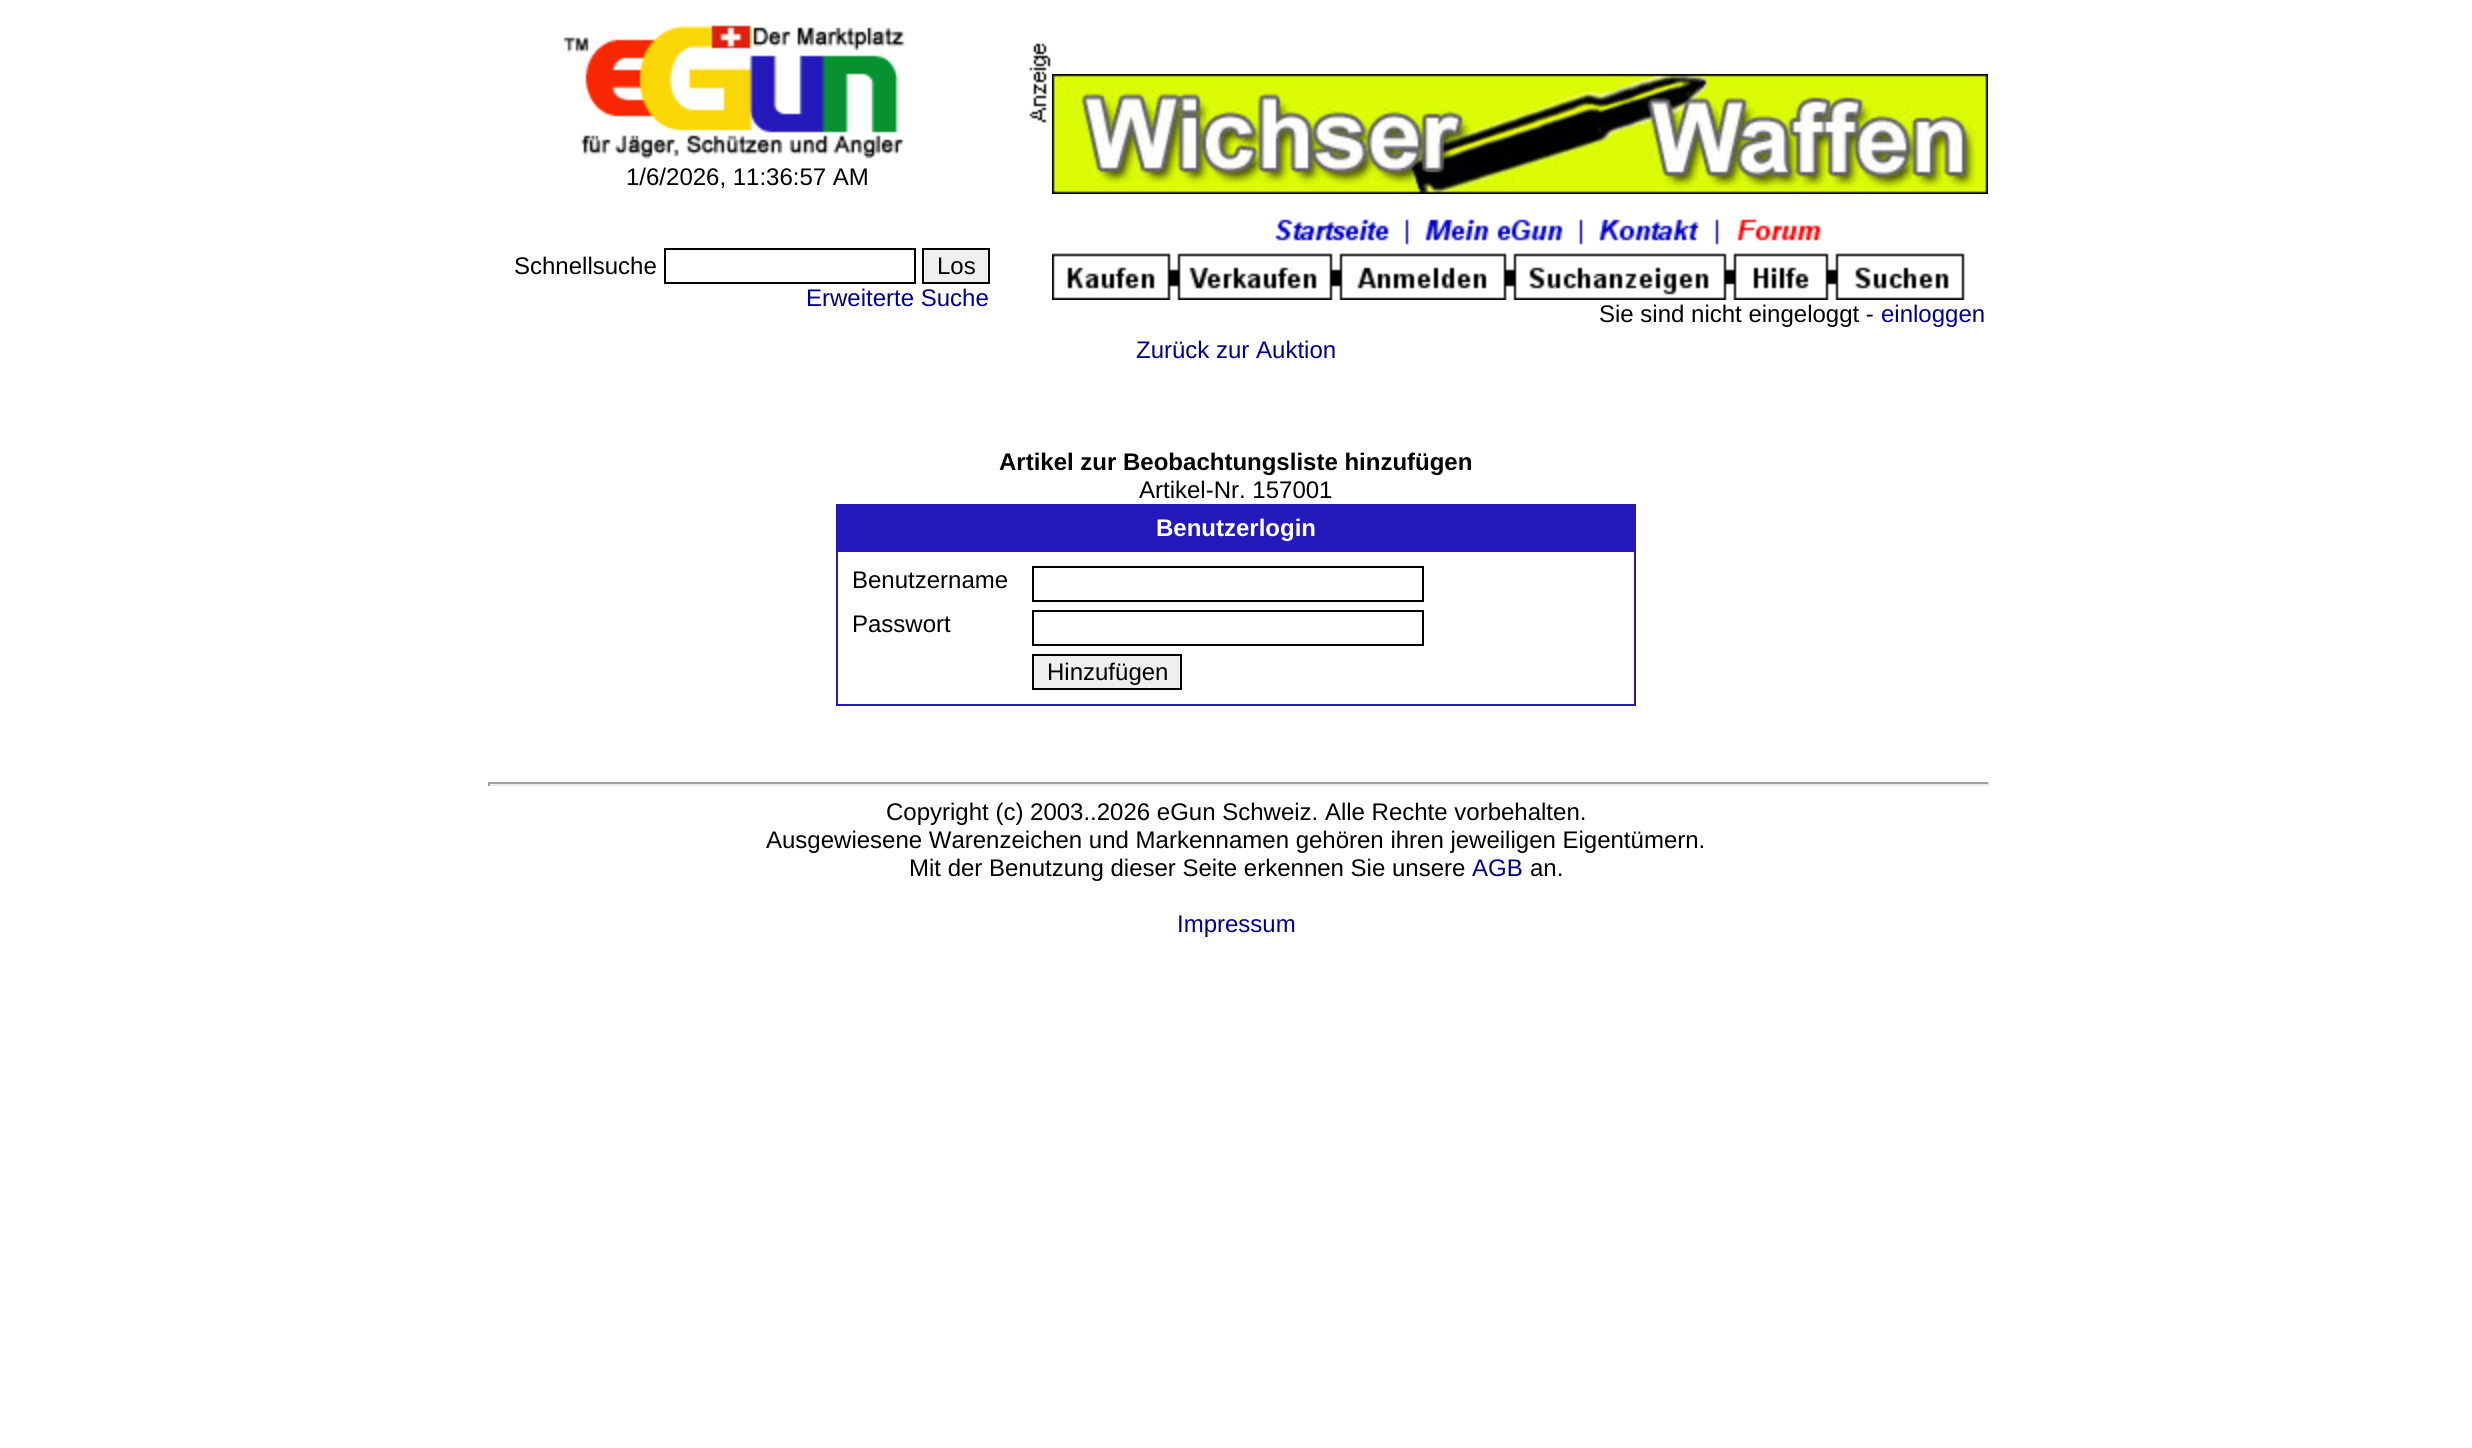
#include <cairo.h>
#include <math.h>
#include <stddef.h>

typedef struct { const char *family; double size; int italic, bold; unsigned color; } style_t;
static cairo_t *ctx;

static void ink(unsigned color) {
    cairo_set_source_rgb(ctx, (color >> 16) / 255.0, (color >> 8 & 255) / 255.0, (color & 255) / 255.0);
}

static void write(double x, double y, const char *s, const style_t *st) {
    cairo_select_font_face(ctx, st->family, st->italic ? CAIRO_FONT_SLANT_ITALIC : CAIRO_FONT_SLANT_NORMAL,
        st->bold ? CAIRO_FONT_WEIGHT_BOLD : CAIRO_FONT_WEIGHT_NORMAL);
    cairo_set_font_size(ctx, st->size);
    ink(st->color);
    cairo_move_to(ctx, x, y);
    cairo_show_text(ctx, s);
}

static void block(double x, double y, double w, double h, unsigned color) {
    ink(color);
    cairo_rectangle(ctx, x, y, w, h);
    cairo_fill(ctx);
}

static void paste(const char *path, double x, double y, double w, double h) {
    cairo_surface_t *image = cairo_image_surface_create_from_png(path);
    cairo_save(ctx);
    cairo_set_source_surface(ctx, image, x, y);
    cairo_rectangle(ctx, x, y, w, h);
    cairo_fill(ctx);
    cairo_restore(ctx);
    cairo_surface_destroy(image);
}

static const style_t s1 = {"Liberation Sans", 24, 0, 0, 0x000000};
static const style_t s2 = {"Liberation Sans", 24, 0, 0, 0x000088};
static const style_t s3 = {"Liberation Sans", 24, 0, 1, 0x000000};
static const style_t s4 = {"Liberation Sans", 24, 0, 1, 0xffffff};

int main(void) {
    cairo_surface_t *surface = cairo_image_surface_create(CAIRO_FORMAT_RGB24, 2472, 1448);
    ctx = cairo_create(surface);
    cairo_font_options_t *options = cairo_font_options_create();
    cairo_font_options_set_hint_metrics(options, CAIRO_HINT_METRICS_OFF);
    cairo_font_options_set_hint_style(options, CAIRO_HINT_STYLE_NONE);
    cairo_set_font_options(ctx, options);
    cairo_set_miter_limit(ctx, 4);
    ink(0xffffff);
    cairo_paint(ctx);
    paste("pic1.png", 563, 25, 342, 134);
    write(626, 185, "1/6/2026, 11:36:57 AM", &s1);
    paste("pic2.png", 1029, 43, 22, 80);
    paste("pic3.png", 1052, 74, 936, 120);
    write(514, 274, "Schnellsuche", &s1);
    cairo_rectangle(ctx, 665, 249, 250, 34);
    cairo_stroke(ctx);
    ink(0xefefef);
    cairo_rectangle(ctx, 923, 249, 66, 34);
    cairo_fill_preserve(ctx);
    ink(0x000000);
    cairo_stroke(ctx);
    write(937, 274, "Los", &s1);
    write(806, 306, "Erweiterte Suche", &s2);
    paste("pic4.png", 1052, 219, 913, 81);
    write(1599, 322, "Sie sind nicht eingeloggt -", &s1);
    write(1881, 322, "einloggen", &s2);
    write(1136, 358, "Zurück zur Auktion", &s2);
    write(999, 470, "Artikel zur Beobachtungsliste hinzufügen", &s3);
    write(1139, 498, "Artikel-Nr. 157001", &s1);
    block(836, 504, 800, 2, 0x2519bc);
    block(1634, 504, 2, 202, 0x2519bc);
    block(836, 704, 800, 2, 0x2519bc);
    block(836, 504, 2, 202, 0x2519bc);
    block(838, 506, 796, 44, 0x2519bc);
    write(1156, 536, "Benutzerlogin", &s4);
    block(836, 550, 800, 2, 0x2519bc);
    write(852, 588, "Benutzername", &s1);
    cairo_rectangle(ctx, 1033, 567, 390, 34);
    cairo_stroke(ctx);
    write(852, 632, "Passwort", &s1);
    cairo_rectangle(ctx, 1033, 611, 390, 34);
    cairo_stroke(ctx);
    ink(0xefefef);
    cairo_rectangle(ctx, 1033, 655, 148, 34);
    cairo_fill_preserve(ctx);
    ink(0x000000);
    cairo_stroke(ctx);
    write(1047, 680, "Hinzufügen", &s1);
    block(488, 782, 1502, 2, 0x9f9f9f);
    block(1988, 782, 2, 4, 0xeeeeee);
    block(488, 784, 1502, 2, 0xeeeeee);
    block(488, 782, 2, 4, 0x9f9f9f);
    write(886, 820, "Copyright (c) 2003..2026 eGun Schweiz. Alle Rechte vorbehalten.", &s1);
    write(766, 848, "Ausgewiesene Warenzeichen und Markennamen gehören ihren jeweiligen Eigentümern.", &s1);
    write(909, 876, "Mit der Benutzung dieser Seite erkennen Sie unsere", &s1);
    write(1472, 876, "AGB", &s2);
    write(1530, 876, "an.", &s1);
    write(1177, 932, "Impressum", &s2);
    cairo_surface_write_to_png(surface, "screenshot.png");
    cairo_font_options_destroy(options);
    cairo_destroy(ctx);
    cairo_surface_destroy(surface);
    return 0;
}
